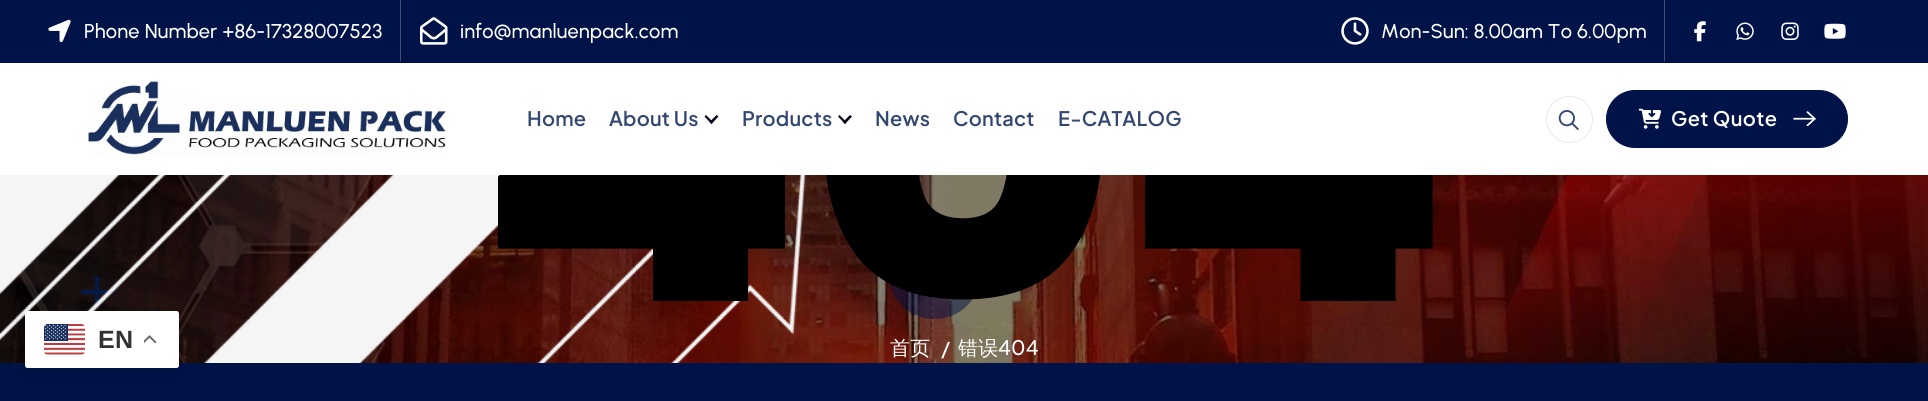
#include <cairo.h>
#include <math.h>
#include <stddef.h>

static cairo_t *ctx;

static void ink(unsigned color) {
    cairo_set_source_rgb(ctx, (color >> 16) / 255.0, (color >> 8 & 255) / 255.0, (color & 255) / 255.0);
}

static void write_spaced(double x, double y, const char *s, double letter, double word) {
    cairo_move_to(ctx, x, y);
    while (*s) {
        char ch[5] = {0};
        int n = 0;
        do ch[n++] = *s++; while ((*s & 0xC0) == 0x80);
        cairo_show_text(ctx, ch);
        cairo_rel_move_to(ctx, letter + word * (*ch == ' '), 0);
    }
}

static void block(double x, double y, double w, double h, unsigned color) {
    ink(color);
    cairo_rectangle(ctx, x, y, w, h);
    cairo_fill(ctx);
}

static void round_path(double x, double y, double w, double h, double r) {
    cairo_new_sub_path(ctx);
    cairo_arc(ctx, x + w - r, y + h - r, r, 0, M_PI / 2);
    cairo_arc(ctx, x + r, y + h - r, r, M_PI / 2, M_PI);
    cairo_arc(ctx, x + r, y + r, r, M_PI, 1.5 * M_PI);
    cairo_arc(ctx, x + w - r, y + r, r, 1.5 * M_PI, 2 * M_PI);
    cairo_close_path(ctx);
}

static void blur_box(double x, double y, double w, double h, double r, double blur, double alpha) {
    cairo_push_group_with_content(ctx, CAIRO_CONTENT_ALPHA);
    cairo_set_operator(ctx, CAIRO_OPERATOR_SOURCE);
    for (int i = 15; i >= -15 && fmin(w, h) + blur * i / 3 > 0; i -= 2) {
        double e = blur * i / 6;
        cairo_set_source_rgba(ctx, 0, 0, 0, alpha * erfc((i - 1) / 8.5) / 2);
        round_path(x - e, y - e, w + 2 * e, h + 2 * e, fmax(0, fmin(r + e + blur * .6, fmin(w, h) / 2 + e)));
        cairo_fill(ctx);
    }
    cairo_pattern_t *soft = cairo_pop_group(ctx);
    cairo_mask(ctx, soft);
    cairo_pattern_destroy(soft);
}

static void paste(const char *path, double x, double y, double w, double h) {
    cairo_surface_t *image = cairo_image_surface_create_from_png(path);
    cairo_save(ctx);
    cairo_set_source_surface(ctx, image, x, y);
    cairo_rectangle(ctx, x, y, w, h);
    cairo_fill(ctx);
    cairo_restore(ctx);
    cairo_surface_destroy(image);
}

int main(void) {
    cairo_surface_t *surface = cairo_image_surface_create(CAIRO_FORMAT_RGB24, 1928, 401);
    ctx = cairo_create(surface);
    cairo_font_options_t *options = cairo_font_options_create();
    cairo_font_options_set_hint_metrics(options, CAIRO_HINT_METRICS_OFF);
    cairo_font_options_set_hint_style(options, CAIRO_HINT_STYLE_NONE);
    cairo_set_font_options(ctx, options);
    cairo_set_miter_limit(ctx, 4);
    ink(0xffffff);
    cairo_paint(ctx);
    block(0, 0, 1928, 63, 0x001349);
    paste("pic1.png", 48, 19, 23, 24);
    cairo_select_font_face(ctx, "Urbanist Medium", CAIRO_FONT_SLANT_NORMAL, CAIRO_FONT_WEIGHT_NORMAL);
    cairo_set_font_size(ctx, 20);
    ink(0xffffff);
    write_spaced(84, 38, "Phone Number +86-17328007523", 0.2, 0);
    block(400, 0, 1, 61, 0x424f72);
    paste("pic2.png", 420, 17, 28, 28);
    ink(0xffffff);
    write_spaced(460, 38, "info@manluenpack.com", 0.2, 0);
    paste("pic3.png", 1341, 17, 28, 28);
    write_spaced(1381, 38, "Mon-Sun: 8.00am To 6.00pm", 0.2, 0);
    block(1664, 0, 1, 61, 0x424f72);
    paste("pic4.png", 1694, 21, 12, 21);
    paste("pic5.png", 1736, 22, 18, 18);
    paste("pic6.png", 1781, 22, 18, 18);
    paste("pic7.png", 1824, 23, 22, 16);
    paste("pic8.png", 88, 81, 358, 74);
    cairo_select_font_face(ctx, "Plus Jakarta Sans SemiBold", CAIRO_FONT_SLANT_NORMAL, CAIRO_FONT_WEIGHT_NORMAL);
    ink(0x334770);
    write_spaced(527, 126, "Home", 0.2, 0);
    write_spaced(609, 126, "About Us", 0.2, 0);
    ink(0x09071d);
    cairo_new_path(ctx);
    cairo_move_to(ctx, 716.5, 115);
    cairo_line_to(ctx, 718.5, 116.5);
    cairo_line_to(ctx, 711.5, 124);
    cairo_line_to(ctx, 709.5, 122);
    cairo_close_path(ctx);
    cairo_fill(ctx);
    cairo_new_path(ctx);
    cairo_move_to(ctx, 706, 115);
    cairo_line_to(ctx, 713, 122);
    cairo_line_to(ctx, 711.5, 124);
    cairo_line_to(ctx, 704.5, 116.5);
    cairo_close_path(ctx);
    cairo_fill(ctx);
    ink(0x334770);
    write_spaced(742, 126, "Products", 0.2, 0);
    ink(0x09071d);
    cairo_new_path(ctx);
    cairo_move_to(ctx, 850, 115);
    cairo_line_to(ctx, 852, 116.5);
    cairo_line_to(ctx, 845, 124);
    cairo_line_to(ctx, 843, 122);
    cairo_close_path(ctx);
    cairo_fill(ctx);
    cairo_new_path(ctx);
    cairo_move_to(ctx, 839.5, 115);
    cairo_line_to(ctx, 846.5, 122);
    cairo_line_to(ctx, 845, 124);
    cairo_line_to(ctx, 838, 116.5);
    cairo_close_path(ctx);
    cairo_fill(ctx);
    ink(0x334770);
    write_spaced(875, 126, "News", 0.2, 0);
    write_spaced(953, 126, "Contact", 0.2, 0);
    write_spaced(1058, 126, "E-CATALOG", 0.2, 0);
    paste("pic9.png", 1558, 110, 21, 20);
    cairo_arc(ctx, 1569.5, 119.5, 23, 0, 2 * M_PI);
    ink(0xe8e8e8);
    cairo_set_line_width(ctx, 1);
    cairo_stroke(ctx);
    ink(0x001349);
    round_path(1606.5, 90.5, 241, 57, 28.5);
    cairo_fill_preserve(ctx);
    cairo_stroke(ctx);
    paste("pic10.png", 1638, 108, 23, 21);
    ink(0xffffff);
    write_spaced(1671, 126, "Get Quote", 0.4, 0);
    paste("pic11.png", 1793, 111, 23, 15);
    paste("pic14.png", 0, 175, 1928, 188);
    block(81, 290, 32, 4, 0x001349);
    block(95, 276, 4, 32, 0x001349);
    paste("pic15.png", 0, 175, 395, 188);
    paste("pic12.png", 0, 175, 806, 188);
    cairo_set_source_rgba(ctx, 0, 0.075, 0.286, 0.5);
    round_path(888, 225, 93, 94, 46.5);
    cairo_fill(ctx);
    paste("pic13.png", 498, 175, 935, 126);
    block(0, 363, 1928, 38, 0x001349);
    cairo_select_font_face(ctx, "WenQuanYi Zen Hei Medium", CAIRO_FONT_SLANT_NORMAL, CAIRO_FONT_WEIGHT_NORMAL);
    ink(0xffffff);
    write_spaced(890, 355, "首页", 0.2, 0);
    cairo_select_font_face(ctx, "Plus Jakarta Sans Medium", CAIRO_FONT_SLANT_NORMAL, CAIRO_FONT_WEIGHT_NORMAL);
    write_spaced(941, 356, "/", 0.2, 0);
    cairo_select_font_face(ctx, "WenQuanYi Zen Hei Medium", CAIRO_FONT_SLANT_NORMAL, CAIRO_FONT_WEIGHT_NORMAL);
    write_spaced(958, 355, "错误", 0.2, 0);
    cairo_select_font_face(ctx, "Plus Jakarta Sans Medium", CAIRO_FONT_SLANT_NORMAL, CAIRO_FONT_WEIGHT_NORMAL);
    write_spaced(998, 355, "404", 0.2, 0);
    ink(0x000000);
    blur_box(25, 318, 154, 56, 2.5, 9.5, 0.15);
    ink(0xffffff);
    round_path(25, 311, 154, 57, 2.5);
    cairo_fill(ctx);
    paste("pic16.png", 44, 324, 41, 31);
    cairo_select_font_face(ctx, "Liberation Sans", CAIRO_FONT_SLANT_NORMAL, CAIRO_FONT_WEIGHT_BOLD);
    cairo_set_font_size(ctx, 25);
    ink(0x333333);
    write_spaced(98, 348, "EN", 0.2, 0);
    paste("pic17.png", 144, 335, 13, 9);
    cairo_surface_write_to_png(surface, "screenshot.png");
    cairo_font_options_destroy(options);
    cairo_destroy(ctx);
    cairo_surface_destroy(surface);
    return 0;
}
